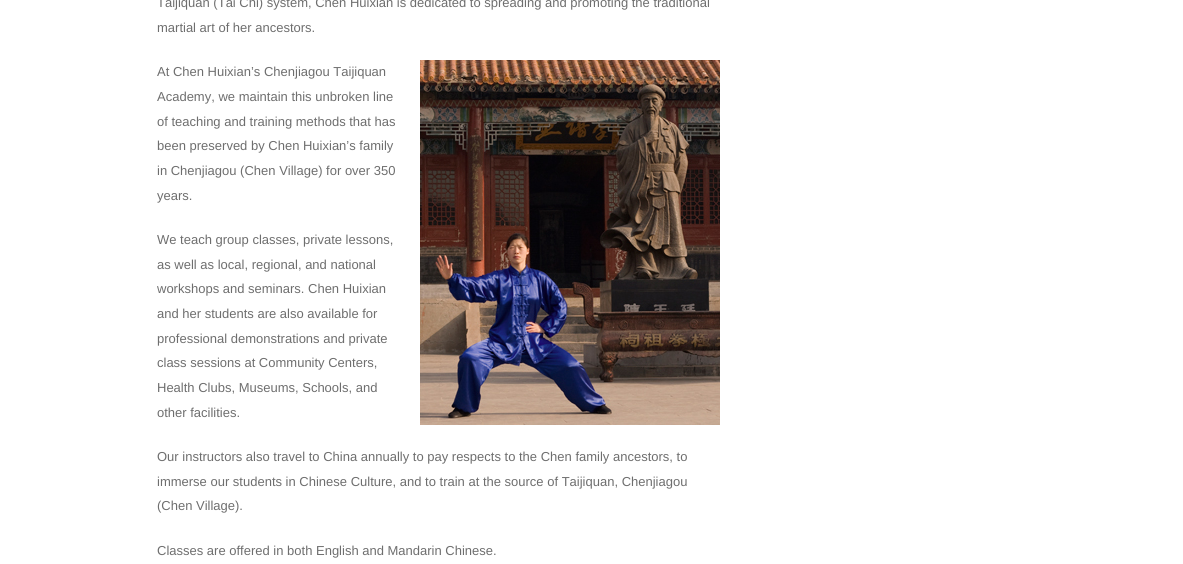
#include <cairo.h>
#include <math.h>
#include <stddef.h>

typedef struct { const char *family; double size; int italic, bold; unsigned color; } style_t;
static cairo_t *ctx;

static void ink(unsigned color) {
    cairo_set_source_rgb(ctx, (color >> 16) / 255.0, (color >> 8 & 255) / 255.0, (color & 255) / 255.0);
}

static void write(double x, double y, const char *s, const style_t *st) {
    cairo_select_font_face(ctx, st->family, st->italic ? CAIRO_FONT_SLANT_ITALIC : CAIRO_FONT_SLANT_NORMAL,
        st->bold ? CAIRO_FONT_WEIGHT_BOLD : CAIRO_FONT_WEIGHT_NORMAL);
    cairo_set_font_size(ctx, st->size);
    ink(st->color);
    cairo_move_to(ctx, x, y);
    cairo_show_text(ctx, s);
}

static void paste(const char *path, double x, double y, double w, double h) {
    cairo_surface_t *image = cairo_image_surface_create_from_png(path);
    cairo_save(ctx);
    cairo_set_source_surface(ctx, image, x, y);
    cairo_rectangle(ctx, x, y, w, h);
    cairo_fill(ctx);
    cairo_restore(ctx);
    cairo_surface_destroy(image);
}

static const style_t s1 = {"Liberation Sans", 13, 0, 0, 0x6e6e6e};

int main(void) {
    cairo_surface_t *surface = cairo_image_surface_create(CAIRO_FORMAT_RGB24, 1183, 564);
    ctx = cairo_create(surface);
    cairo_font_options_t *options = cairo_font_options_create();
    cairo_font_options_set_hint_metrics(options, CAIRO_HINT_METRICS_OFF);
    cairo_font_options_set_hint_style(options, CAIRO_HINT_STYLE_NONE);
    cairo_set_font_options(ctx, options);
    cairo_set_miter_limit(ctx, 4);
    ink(0xffffff);
    cairo_paint(ctx);
    write(157, 7, "Taijiquan (Tai Chi) system, Chen Huixian is dedicated to spreading and promoting the traditional", &s1);
    write(157, 32, "martial art of her ancestors.", &s1);
    write(157, 76, "At Chen Huixian’s Chenjiagou Taijiquan", &s1);
    write(157, 101, "Academy, we maintain this unbroken line", &s1);
    write(157, 126, "of teaching and training methods that has", &s1);
    write(157, 150, "been preserved by Chen Huixian’s family", &s1);
    write(157, 175, "in Chenjiagou (Chen Village) for over 350", &s1);
    write(157, 200, "years.", &s1);
    paste("pic1.png", 420, 60, 300, 365);
    write(157, 244, "We teach group classes, private lessons,", &s1);
    write(157, 269, "as well as local, regional, and national", &s1);
    write(157, 293, "workshops and seminars. Chen Huixian", &s1);
    write(157, 318, "and her students are also available for", &s1);
    write(157, 343, "professional demonstrations and private", &s1);
    write(157, 367, "class sessions at Community Centers,", &s1);
    write(157, 392, "Health Clubs, Museums, Schools, and", &s1);
    write(157, 417, "other facilities.", &s1);
    write(157, 461, "Our instructors also travel to China annually to pay respects to the Chen family ancestors, to", &s1);
    write(157, 486, "immerse our students in Chinese Culture, and to train at the source of Taijiquan, Chenjiagou", &s1);
    write(157, 510, "(Chen Village).", &s1);
    write(157, 555, "Classes are offered in both English and Mandarin Chinese.", &s1);
    cairo_surface_write_to_png(surface, "screenshot.png");
    cairo_font_options_destroy(options);
    cairo_destroy(ctx);
    cairo_surface_destroy(surface);
    return 0;
}
